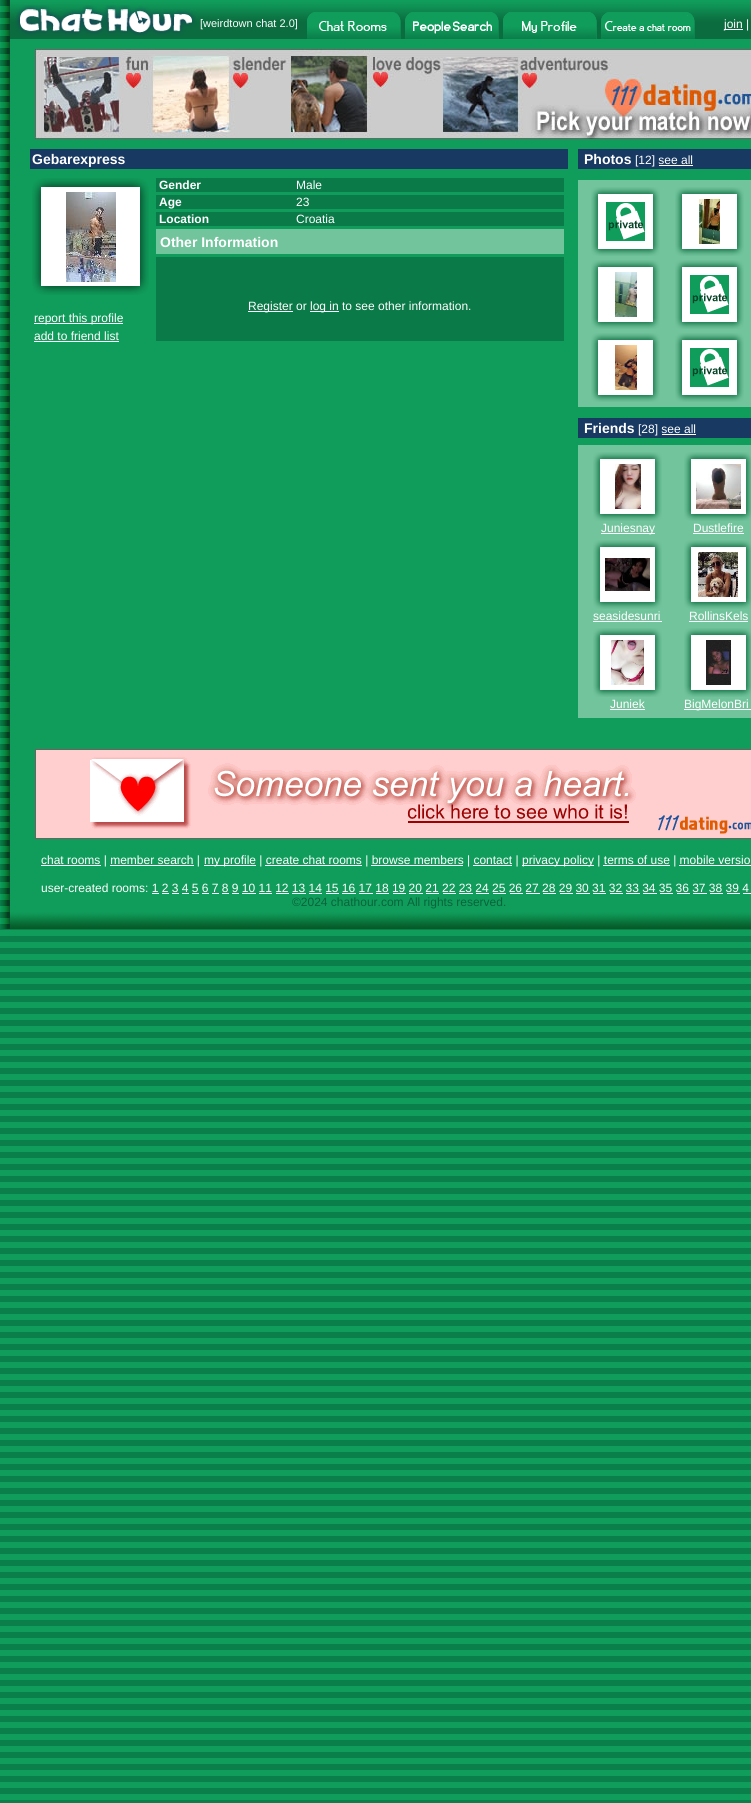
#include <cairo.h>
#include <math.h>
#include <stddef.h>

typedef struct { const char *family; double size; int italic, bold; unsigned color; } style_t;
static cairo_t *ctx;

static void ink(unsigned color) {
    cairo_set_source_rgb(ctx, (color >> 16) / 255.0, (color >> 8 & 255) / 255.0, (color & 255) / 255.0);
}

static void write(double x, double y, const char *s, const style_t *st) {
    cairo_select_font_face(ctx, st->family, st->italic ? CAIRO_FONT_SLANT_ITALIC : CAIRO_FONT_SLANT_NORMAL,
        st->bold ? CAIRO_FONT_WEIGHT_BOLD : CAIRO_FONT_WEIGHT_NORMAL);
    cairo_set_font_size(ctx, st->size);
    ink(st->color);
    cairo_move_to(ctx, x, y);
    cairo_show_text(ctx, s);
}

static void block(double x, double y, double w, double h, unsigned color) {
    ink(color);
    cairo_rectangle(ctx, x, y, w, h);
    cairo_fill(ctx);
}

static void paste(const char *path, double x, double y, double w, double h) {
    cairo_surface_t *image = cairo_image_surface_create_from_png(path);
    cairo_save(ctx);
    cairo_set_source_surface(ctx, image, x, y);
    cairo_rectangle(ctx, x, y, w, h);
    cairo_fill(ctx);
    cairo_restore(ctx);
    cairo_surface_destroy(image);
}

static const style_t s1 = {"Liberation Sans", 11, 0, 0, 0xffffff};
static const style_t s2 = {"Liberation Sans", 12, 0, 0, 0xffffff};
static const style_t s3 = {"Liberation Sans", 14, 0, 1, 0xffffff};
static const style_t s4 = {"Liberation Sans", 12, 0, 1, 0xffffff};
static const style_t s5 = {"Liberation Sans", 12, 0, 0, 0x08633a};

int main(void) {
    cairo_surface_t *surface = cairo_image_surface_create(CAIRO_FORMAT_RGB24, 751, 1803);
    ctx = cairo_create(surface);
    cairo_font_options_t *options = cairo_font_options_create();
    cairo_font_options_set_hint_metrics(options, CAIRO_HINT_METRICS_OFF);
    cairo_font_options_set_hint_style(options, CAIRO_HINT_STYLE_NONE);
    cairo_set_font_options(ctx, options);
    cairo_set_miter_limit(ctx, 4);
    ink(0xffffff);
    cairo_paint(ctx);
    paste("pic1.png", 0, 909, 751, 894);
    paste("pic2.png", 0, 0, 10, 929);
    paste("pic3.png", 10, 0, 741, 39);
    paste("pic4.png", 15, 5, 182, 31);
    write(200, 27, "[weirdtown chat 2.0]", &s1);
    paste("pic5.png", 307, 12, 94, 27);
    paste("pic6.png", 405, 12, 94, 27);
    paste("pic7.png", 503, 12, 94, 27);
    paste("pic8.png", 601, 12, 94, 27);
    block(724, 29, 19, 1, 0xffffff);
    write(724, 28, "join |", &s2);
    block(10, 39, 741, 870, 0x109d5b);
    paste("pic9.png", 35, 49, 716, 90);
    block(30, 149, 538, 20, 0x183962);
    write(32, 164, "Gebarexpress", &s3);
    block(156, 178, 408, 14, 0x0a7a48);
    write(159, 189, "Gender", &s4);
    write(296, 189, "Male", &s2);
    block(156, 195, 408, 14, 0x0a7a48);
    write(159, 206, "Age", &s4);
    write(296, 206, "23", &s2);
    block(156, 212, 408, 14, 0x0a7a48);
    write(159, 223, "Location", &s4);
    write(296, 223, "Croatia", &s2);
    block(156, 229, 408, 25, 0x72c49c);
    write(160, 247, "Other Information", &s3);
    block(156, 257, 408, 84, 0x0a7a48);
    block(248, 311, 45, 1, 0xffffff);
    write(248, 310, "Register or", &s2);
    block(310, 311, 29, 1, 0xffffff);
    write(310, 310, "log in to see other information.", &s2);
    paste("pic10.png", 33, 179, 8, 8);
    paste("pic11.png", 41, 178, 99, 9);
    paste("pic12.png", 140, 179, 8, 8);
    paste("pic13.png", 32, 187, 9, 99);
    block(41, 187, 99, 99, 0xffffff);
    paste("pic14.png", 66, 192, 50, 90);
    paste("pic15.png", 140, 187, 9, 99);
    paste("pic16.png", 33, 286, 8, 8);
    paste("pic17.png", 41, 286, 99, 9);
    paste("pic18.png", 140, 286, 8, 8);
    block(34, 323, 89, 1, 0xffffff);
    write(34, 322, "report this profile", &s2);
    write(34, 340, "add to friend list", &s2);
    block(34, 341, 85, 1, 0xffffff);
    block(578, 149, 173, 20, 0x183962);
    write(584, 164, "Photos", &s3);
    write(635, 164, "[12] see all", &s2);
    block(659, 165, 34, 1, 0xffffff);
    block(578, 180, 173, 227, 0x72c49c);
    paste("pic19.png", 591, 187, 10, 10);
    paste("pic20.png", 601, 187, 49, 10);
    paste("pic21.png", 650, 187, 10, 10);
    paste("pic22.png", 591, 197, 10, 49);
    block(601, 197, 49, 49, 0xffffff);
    paste("pic23.png", 606, 202, 39, 39);
    paste("pic24.png", 650, 197, 10, 49);
    paste("pic25.png", 591, 246, 10, 10);
    paste("pic26.png", 601, 246, 49, 10);
    paste("pic27.png", 650, 246, 10, 10);
    paste("pic19.png", 675, 187, 10, 10);
    paste("pic20.png", 685, 187, 49, 10);
    paste("pic21.png", 734, 187, 10, 10);
    paste("pic22.png", 675, 197, 10, 49);
    block(685, 197, 49, 49, 0xffffff);
    paste("pic28.png", 699, 199, 21, 45);
    paste("pic24.png", 734, 197, 10, 49);
    paste("pic25.png", 675, 246, 10, 10);
    paste("pic26.png", 685, 246, 49, 10);
    paste("pic27.png", 734, 246, 10, 10);
    paste("pic19.png", 591, 260, 10, 10);
    paste("pic20.png", 601, 260, 49, 10);
    paste("pic21.png", 650, 260, 10, 10);
    paste("pic22.png", 591, 270, 10, 49);
    block(601, 270, 49, 49, 0xffffff);
    paste("pic29.png", 615, 272, 22, 45);
    paste("pic24.png", 650, 270, 10, 49);
    paste("pic25.png", 591, 319, 10, 10);
    paste("pic26.png", 601, 319, 49, 10);
    paste("pic27.png", 650, 319, 10, 10);
    paste("pic19.png", 675, 260, 10, 10);
    paste("pic20.png", 685, 260, 49, 10);
    paste("pic21.png", 734, 260, 10, 10);
    paste("pic22.png", 675, 270, 10, 49);
    block(685, 270, 49, 49, 0xffffff);
    paste("pic23.png", 690, 275, 39, 39);
    paste("pic24.png", 734, 270, 10, 49);
    paste("pic25.png", 675, 319, 10, 10);
    paste("pic26.png", 685, 319, 49, 10);
    paste("pic27.png", 734, 319, 10, 10);
    paste("pic19.png", 591, 333, 10, 10);
    paste("pic20.png", 601, 333, 49, 10);
    paste("pic21.png", 650, 333, 10, 10);
    paste("pic22.png", 591, 343, 10, 49);
    block(601, 343, 49, 49, 0xffffff);
    paste("pic30.png", 615, 345, 22, 45);
    paste("pic24.png", 650, 343, 10, 49);
    paste("pic25.png", 591, 392, 10, 10);
    paste("pic26.png", 601, 392, 49, 10);
    paste("pic27.png", 650, 392, 10, 10);
    paste("pic19.png", 675, 333, 10, 10);
    paste("pic20.png", 685, 333, 49, 10);
    paste("pic21.png", 734, 333, 10, 10);
    paste("pic22.png", 675, 343, 10, 49);
    block(685, 343, 49, 49, 0xffffff);
    paste("pic23.png", 690, 348, 39, 39);
    paste("pic24.png", 734, 343, 10, 49);
    paste("pic25.png", 675, 392, 10, 10);
    paste("pic26.png", 685, 392, 49, 10);
    paste("pic27.png", 734, 392, 10, 10);
    block(578, 418, 173, 20, 0x183962);
    write(584, 433, "Friends", &s3);
    write(638, 433, "[28] see all", &s2);
    block(662, 434, 34, 1, 0xffffff);
    block(578, 445, 173, 273, 0x72c49c);
    paste("pic19.png", 593, 452, 10, 10);
    paste("pic20.png", 603, 452, 49, 10);
    paste("pic21.png", 652, 452, 10, 10);
    paste("pic22.png", 593, 462, 10, 49);
    block(603, 462, 49, 49, 0xffffff);
    paste("pic31.png", 615, 464, 26, 45);
    paste("pic24.png", 652, 462, 10, 49);
    paste("pic25.png", 593, 511, 10, 10);
    paste("pic26.png", 603, 511, 49, 10);
    paste("pic27.png", 652, 511, 10, 10);
    block(601, 533, 54, 1, 0xffffff);
    write(601, 532, "Juniesnay", &s2);
    paste("pic19.png", 684, 452, 10, 10);
    paste("pic20.png", 694, 452, 49, 10);
    paste("pic32.png", 743, 452, 8, 10);
    paste("pic22.png", 684, 462, 10, 49);
    block(694, 462, 49, 49, 0xffffff);
    paste("pic33.png", 696, 464, 45, 45);
    paste("pic34.png", 743, 462, 8, 49);
    paste("pic25.png", 684, 511, 10, 10);
    paste("pic26.png", 694, 511, 49, 10);
    paste("pic35.png", 743, 511, 8, 10);
    write(693, 532, "Dustlefire", &s2);
    block(693, 533, 51, 1, 0xffffff);
    paste("pic19.png", 593, 540, 10, 10);
    paste("pic20.png", 603, 540, 49, 10);
    paste("pic21.png", 652, 540, 10, 10);
    paste("pic22.png", 593, 550, 10, 49);
    block(603, 550, 49, 49, 0xffffff);
    paste("pic36.png", 605, 558, 45, 33);
    paste("pic24.png", 652, 550, 10, 49);
    paste("pic25.png", 593, 599, 10, 10);
    paste("pic26.png", 603, 599, 49, 10);
    paste("pic27.png", 652, 599, 10, 10);
    write(593, 620, "seasidesunri", &s2);
    block(593, 621, 69, 1, 0xffffff);
    paste("pic19.png", 684, 540, 10, 10);
    paste("pic20.png", 694, 540, 49, 10);
    paste("pic32.png", 743, 540, 8, 10);
    paste("pic22.png", 684, 550, 10, 49);
    block(694, 550, 49, 49, 0xffffff);
    paste("pic37.png", 698, 552, 40, 45);
    paste("pic34.png", 743, 550, 8, 49);
    paste("pic25.png", 684, 599, 10, 10);
    paste("pic26.png", 694, 599, 49, 10);
    paste("pic35.png", 743, 599, 8, 10);
    write(689, 620, "RollinsKels", &s2);
    block(689, 621, 59, 1, 0xffffff);
    paste("pic19.png", 593, 628, 10, 10);
    paste("pic20.png", 603, 628, 49, 10);
    paste("pic21.png", 652, 628, 10, 10);
    paste("pic22.png", 593, 638, 10, 49);
    block(603, 638, 49, 49, 0xffffff);
    paste("pic38.png", 611, 640, 33, 45);
    paste("pic24.png", 652, 638, 10, 49);
    paste("pic25.png", 593, 687, 10, 10);
    paste("pic26.png", 603, 687, 49, 10);
    paste("pic27.png", 652, 687, 10, 10);
    write(610, 708, "Juniek", &s2);
    block(610, 709, 35, 1, 0xffffff);
    paste("pic19.png", 684, 628, 10, 10);
    paste("pic20.png", 694, 628, 49, 10);
    paste("pic32.png", 743, 628, 8, 10);
    paste("pic22.png", 684, 638, 10, 49);
    block(694, 638, 49, 49, 0xffffff);
    paste("pic39.png", 706, 640, 25, 45);
    paste("pic34.png", 743, 638, 8, 49);
    paste("pic25.png", 684, 687, 10, 10);
    paste("pic26.png", 694, 687, 49, 10);
    paste("pic35.png", 743, 687, 8, 10);
    block(684, 709, 67, 1, 0xffffff);
    write(684, 708, "BigMelonBri", &s2);
    paste("pic40.png", 35, 749, 716, 90);
    block(41, 865, 60, 1, 0xffffff);
    write(41, 864, "chat rooms | member search |", &s2);
    block(204, 865, 52, 1, 0xffffff);
    write(204, 864, "my profile | create chat rooms | browse members | contact |", &s2);
    block(522, 865, 72, 1, 0xffffff);
    write(522, 864, "privacy policy | terms of use | mobile versio", &s2);
    block(110, 865, 84, 1, 0xffffff);
    block(265, 865, 97, 1, 0xffffff);
    block(371, 865, 92, 1, 0xffffff);
    block(473, 865, 39, 1, 0xffffff);
    block(603, 865, 67, 1, 0xffffff);
    block(679, 865, 72, 1, 0xffffff);
    write(41, 892, "user-created rooms: 1 2 3 4 5 6 7 8 9 10 11 12 13 14 15 16 17 18 19 20 21 22 23 24 25 26 27 28 29 30 31 32 33 34 35 36 37 38 39 4", &s2);
    block(152, 893, 7, 1, 0xffffff);
    block(162, 893, 7, 1, 0xffffff);
    block(172, 893, 7, 1, 0xffffff);
    block(182, 893, 7, 1, 0xffffff);
    block(192, 893, 7, 1, 0xffffff);
    block(202, 893, 7, 1, 0xffffff);
    block(212, 893, 7, 1, 0xffffff);
    block(222, 893, 7, 1, 0xffffff);
    block(232, 893, 7, 1, 0xffffff);
    block(242, 893, 14, 1, 0xffffff);
    block(259, 893, 13, 1, 0xffffff);
    block(276, 893, 13, 1, 0xffffff);
    block(292, 893, 14, 1, 0xffffff);
    block(309, 893, 13, 1, 0xffffff);
    block(326, 893, 13, 1, 0xffffff);
    block(342, 893, 14, 1, 0xffffff);
    block(359, 893, 14, 1, 0xffffff);
    block(376, 893, 13, 1, 0xffffff);
    block(393, 893, 13, 1, 0xffffff);
    block(409, 893, 14, 1, 0xffffff);
    block(426, 893, 13, 1, 0xffffff);
    block(443, 893, 13, 1, 0xffffff);
    block(459, 893, 14, 1, 0xffffff);
    block(476, 893, 13, 1, 0xffffff);
    block(493, 893, 13, 1, 0xffffff);
    block(510, 893, 13, 1, 0xffffff);
    block(526, 893, 14, 1, 0xffffff);
    block(543, 893, 13, 1, 0xffffff);
    block(560, 893, 13, 1, 0xffffff);
    block(576, 893, 14, 1, 0xffffff);
    block(593, 893, 13, 1, 0xffffff);
    block(610, 893, 13, 1, 0xffffff);
    block(626, 893, 14, 1, 0xffffff);
    block(643, 893, 14, 1, 0xffffff);
    block(660, 893, 13, 1, 0xffffff);
    block(677, 893, 13, 1, 0xffffff);
    block(693, 893, 14, 1, 0xffffff);
    block(710, 893, 13, 1, 0xffffff);
    block(727, 893, 13, 1, 0xffffff);
    block(743, 893, 8, 1, 0xffffff);
    write(292, 906, "©2024 chathour.com All rights reserved.", &s5);
    paste("pic41.png", 10, 912, 741, 17);
    cairo_surface_write_to_png(surface, "screenshot.png");
    cairo_font_options_destroy(options);
    cairo_destroy(ctx);
    cairo_surface_destroy(surface);
    return 0;
}
